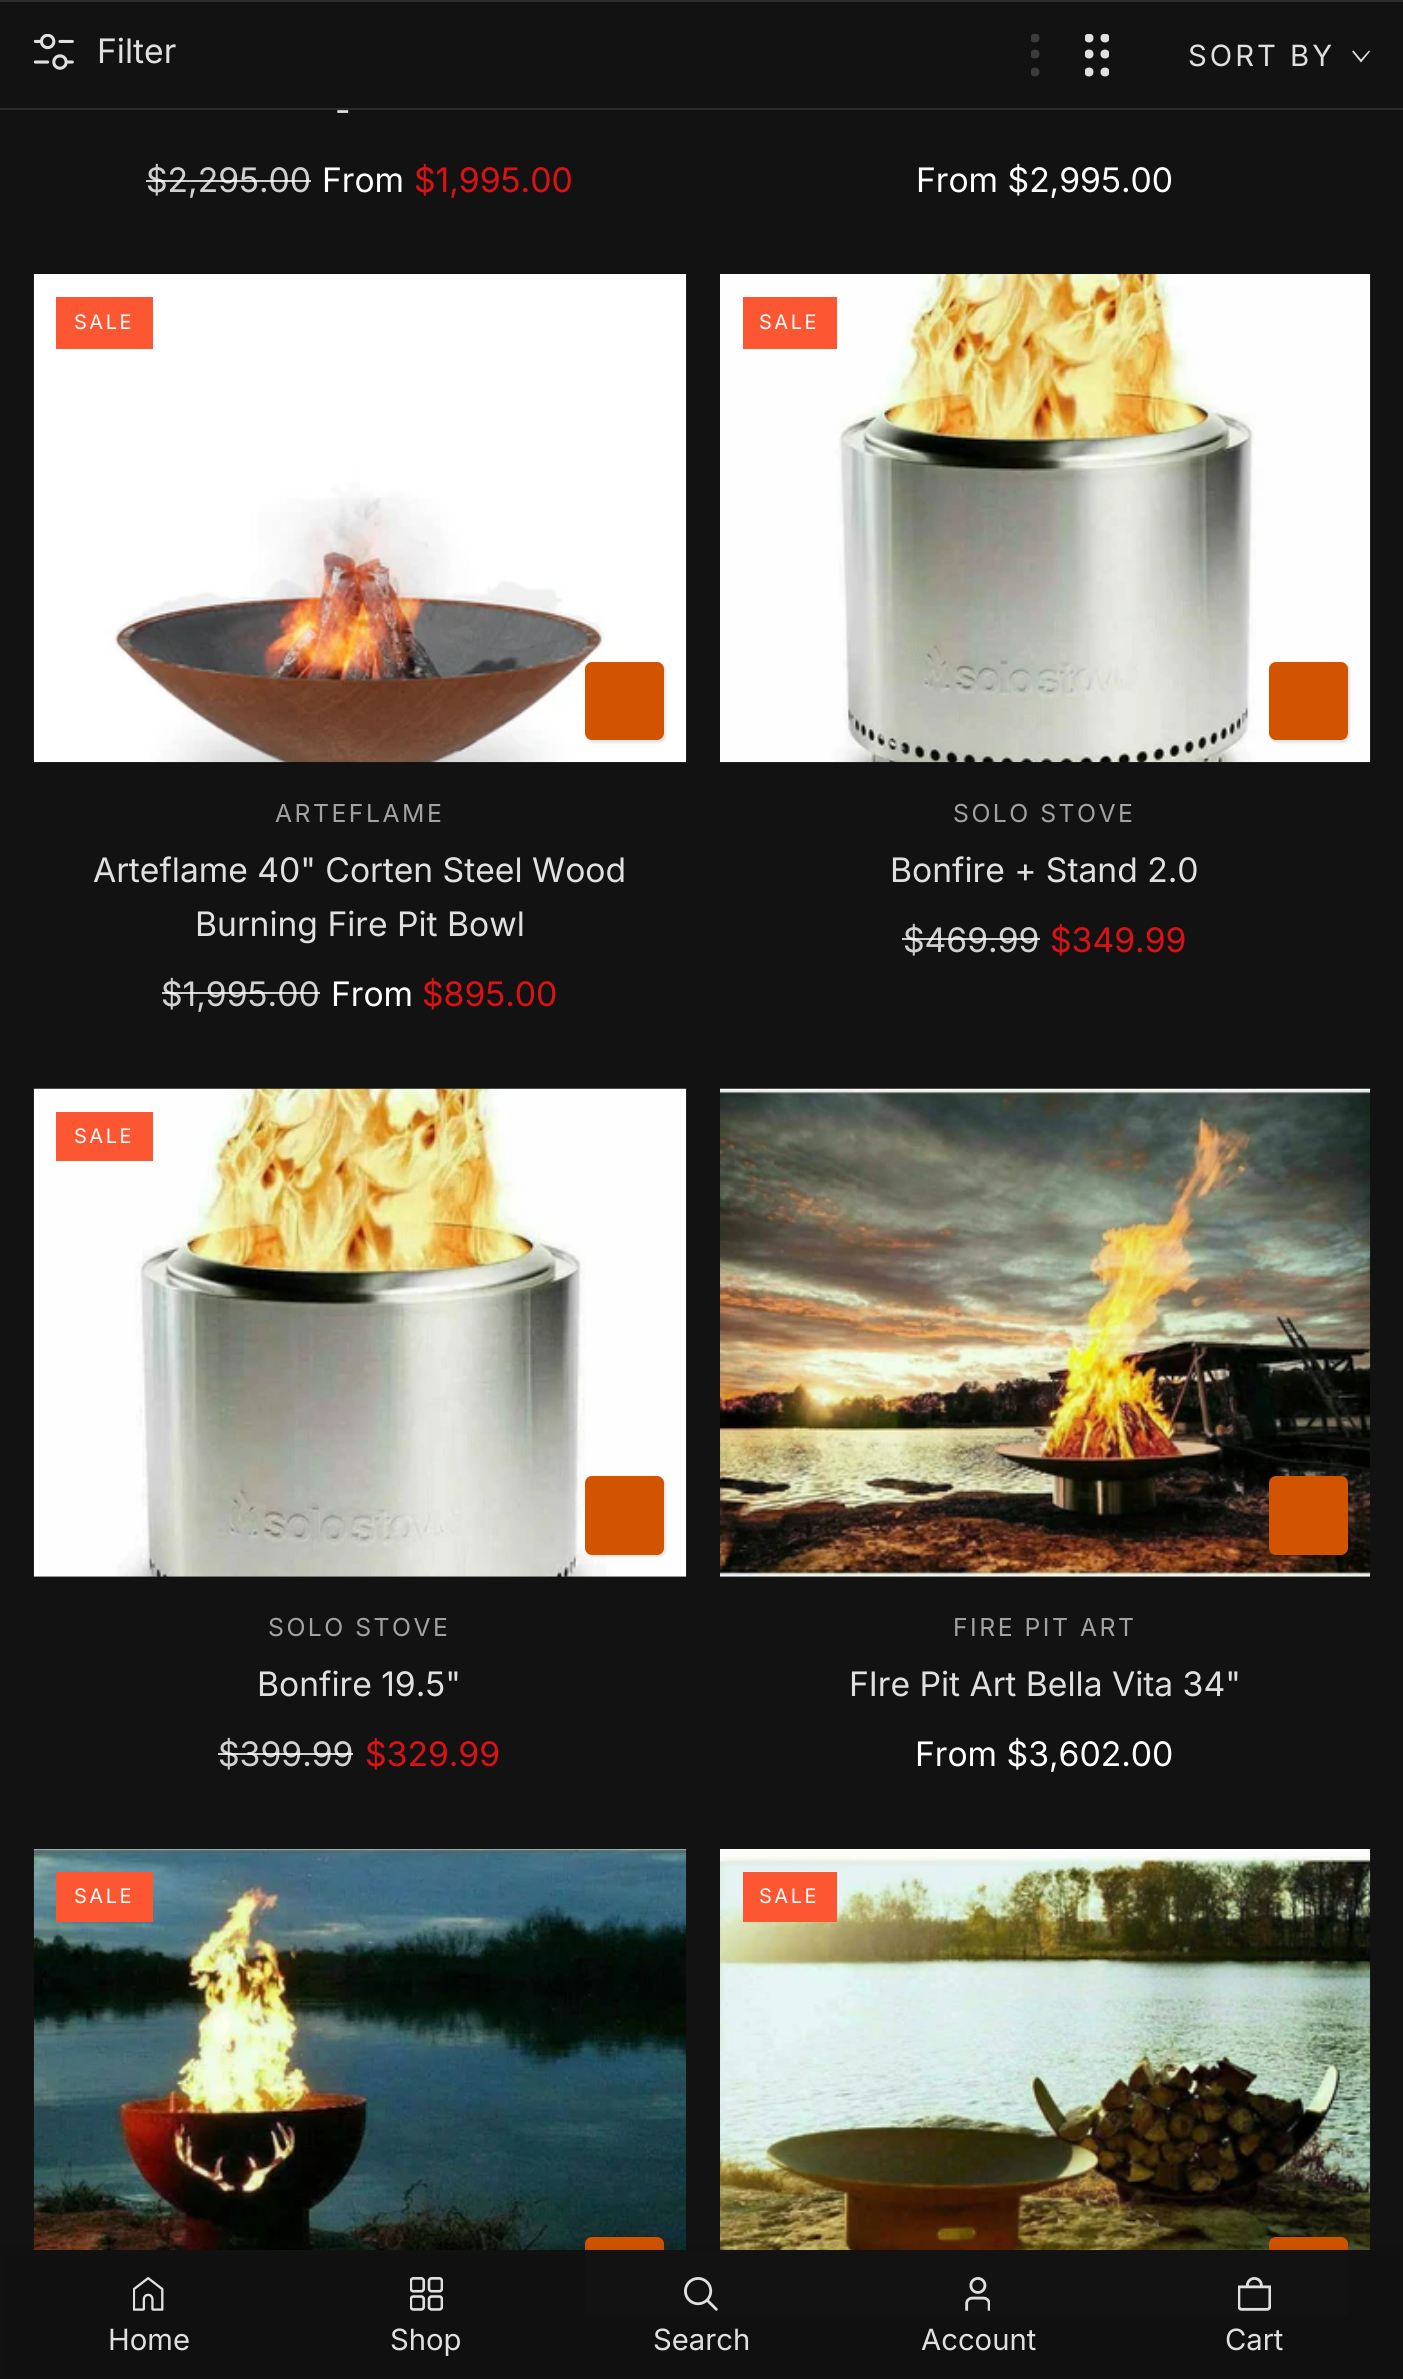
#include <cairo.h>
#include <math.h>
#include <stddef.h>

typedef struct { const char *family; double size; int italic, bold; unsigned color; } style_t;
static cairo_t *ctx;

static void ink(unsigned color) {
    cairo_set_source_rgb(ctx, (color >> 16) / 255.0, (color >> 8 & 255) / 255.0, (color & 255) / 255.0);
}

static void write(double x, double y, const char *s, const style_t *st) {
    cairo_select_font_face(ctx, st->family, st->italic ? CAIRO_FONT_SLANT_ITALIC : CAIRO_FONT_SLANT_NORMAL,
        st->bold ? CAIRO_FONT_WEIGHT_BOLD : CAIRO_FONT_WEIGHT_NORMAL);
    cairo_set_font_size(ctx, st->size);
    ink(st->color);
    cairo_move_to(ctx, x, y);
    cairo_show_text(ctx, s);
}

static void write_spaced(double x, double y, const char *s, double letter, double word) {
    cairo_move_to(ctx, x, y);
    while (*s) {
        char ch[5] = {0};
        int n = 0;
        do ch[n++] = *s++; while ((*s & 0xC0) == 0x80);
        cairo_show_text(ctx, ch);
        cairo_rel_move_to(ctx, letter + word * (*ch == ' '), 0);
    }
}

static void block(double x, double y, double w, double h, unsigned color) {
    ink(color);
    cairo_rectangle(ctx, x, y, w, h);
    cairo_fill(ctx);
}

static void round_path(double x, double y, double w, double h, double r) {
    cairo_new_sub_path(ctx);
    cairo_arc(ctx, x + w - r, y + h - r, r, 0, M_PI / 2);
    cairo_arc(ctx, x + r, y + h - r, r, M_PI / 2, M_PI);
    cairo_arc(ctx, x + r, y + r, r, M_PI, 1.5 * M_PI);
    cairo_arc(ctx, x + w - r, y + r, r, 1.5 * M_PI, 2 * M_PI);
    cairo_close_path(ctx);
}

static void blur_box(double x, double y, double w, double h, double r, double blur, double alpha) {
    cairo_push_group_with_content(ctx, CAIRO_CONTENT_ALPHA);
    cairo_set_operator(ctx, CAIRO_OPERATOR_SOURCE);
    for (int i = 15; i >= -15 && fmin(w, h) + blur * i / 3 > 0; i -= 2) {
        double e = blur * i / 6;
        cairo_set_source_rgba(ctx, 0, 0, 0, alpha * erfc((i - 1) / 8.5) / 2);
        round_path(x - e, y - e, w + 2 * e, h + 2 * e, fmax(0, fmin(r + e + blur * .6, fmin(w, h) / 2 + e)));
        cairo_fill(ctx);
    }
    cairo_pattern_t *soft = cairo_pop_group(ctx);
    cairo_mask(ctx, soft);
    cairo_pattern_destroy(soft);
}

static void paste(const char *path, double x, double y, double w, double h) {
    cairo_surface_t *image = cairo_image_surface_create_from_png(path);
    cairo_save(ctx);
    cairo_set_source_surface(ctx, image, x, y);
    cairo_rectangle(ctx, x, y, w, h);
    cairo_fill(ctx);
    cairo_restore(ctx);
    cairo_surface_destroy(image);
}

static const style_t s1 = {"Inter", 33.75, 0, 0, 0xe0e0e0};
static const style_t s2 = {"Inter", 33.75, 0, 0, 0xd0d0d0};
static const style_t s3 = {"Inter", 33.75, 0, 0, 0xffffff};
static const style_t s4 = {"Inter", 33.75, 0, 0, 0xdb1215};
static const style_t s5 = {"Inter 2", 29.25, 0, 0, 0xe0e0e0};

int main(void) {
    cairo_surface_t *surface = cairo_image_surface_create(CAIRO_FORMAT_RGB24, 1403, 2379);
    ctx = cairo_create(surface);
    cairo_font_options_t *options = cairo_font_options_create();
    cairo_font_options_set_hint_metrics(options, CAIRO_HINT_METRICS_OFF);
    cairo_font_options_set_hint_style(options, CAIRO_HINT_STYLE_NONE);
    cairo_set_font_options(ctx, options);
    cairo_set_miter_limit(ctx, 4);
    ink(0x121212);
    cairo_paint(ctx);
    block(0, 0, 1403, 2, 0x2b2b2b);
    block(0, 108, 1403, 2, 0x2b2b2b);
    paste("pic1.png", 34, 34, 40, 36);
    write(97, 63, "Filter", &s1);
    cairo_save(ctx);
    cairo_rectangle(ctx, 1031, 34, 9, 43);
    cairo_clip(ctx);
    ink(0x3b3b3b);
    cairo_arc(ctx, 1035, 38, 4.5, 0, 2 * M_PI);
    cairo_fill(ctx);
    cairo_arc(ctx, 1035, 54, 4.5, 0, 2 * M_PI);
    cairo_fill(ctx);
    cairo_arc(ctx, 1035, 72, 4.5, 0, 2 * M_PI);
    cairo_fill(ctx);
    cairo_restore(ctx);
    cairo_save(ctx);
    cairo_rectangle(ctx, 1085, 34, 24, 43);
    cairo_clip(ctx);
    cairo_arc(ctx, 1089, 38, 4.5, 0, 2 * M_PI);
    cairo_fill(ctx);
    cairo_arc(ctx, 1105, 38, 4.5, 0, 2 * M_PI);
    cairo_fill(ctx);
    cairo_arc(ctx, 1089, 54, 4.5, 0, 2 * M_PI);
    cairo_fill(ctx);
    cairo_arc(ctx, 1105, 54, 4.5, 0, 2 * M_PI);
    cairo_fill(ctx);
    cairo_arc(ctx, 1089, 72, 4.5, 0, 2 * M_PI);
    cairo_fill(ctx);
    cairo_arc(ctx, 1105, 72, 4.5, 0, 2 * M_PI);
    cairo_fill(ctx);
    cairo_restore(ctx);
    cairo_select_font_face(ctx, "Inter 2", CAIRO_FONT_SLANT_NORMAL, CAIRO_FONT_WEIGHT_NORMAL);
    cairo_set_font_size(ctx, 29.25);
    write_spaced(1188, 66, "SORT BY", 3, 0);
    cairo_new_path(ctx);
    cairo_move_to(ctx, 1369, 50.5);
    cairo_line_to(ctx, 1370, 51.5);
    cairo_line_to(ctx, 1361, 62.5);
    cairo_line_to(ctx, 1352, 51.5);
    cairo_line_to(ctx, 1353.5, 50.5);
    cairo_line_to(ctx, 1361, 59.5);
    cairo_close_path(ctx);
    cairo_fill(ctx);
    write(335, 122, "-", &s1);
    write(146, 192, "$2,295.00", &s2);
    cairo_set_source_rgba(ctx, 1, 1, 1, 0.8);
    cairo_rectangle(ctx, 146, 180, 165, 2);
    cairo_fill(ctx);
    write(322, 192, "From", &s3);
    write(414, 192, "$1,995.00", &s4);
    write(916, 192, "From $2,995.00", &s3);
    paste("pic2.png", 33, 274, 654, 489);
    block(56, 297, 97, 52, 0xfc5732);
    cairo_select_font_face(ctx, "Inter 2", CAIRO_FONT_SLANT_NORMAL, CAIRO_FONT_WEIGHT_NORMAL);
    cairo_set_font_size(ctx, 20);
    ink(0xffffff);
    write_spaced(74, 329, "SALE", 2.5, 0);
    ink(0x000000);
    blur_box(587, 664, 79, 79, 7, 1, 0.1);
    ink(0xd35400);
    round_path(585, 662, 79, 78, 7);
    cairo_fill(ctx);
    cairo_set_font_size(ctx, 24.75);
    ink(0xa2a2a2);
    write_spaced(275, 822, "ARTEFLAME", 2.5, 0);
    write(93, 882, "Arteflame 40\" Corten Steel Wood", &s1);
    write(195, 936, "Burning Fire Pit Bowl", &s1);
    write(161, 1006, "$1,995.00", &s2);
    cairo_set_source_rgba(ctx, 1, 1, 1, 0.8);
    cairo_rectangle(ctx, 162, 992, 158, 2);
    cairo_fill(ctx);
    write(331, 1006, "From", &s3);
    write(422, 1006, "$895.00", &s4);
    paste("pic3.png", 720, 274, 651, 489);
    block(743, 297, 94, 52, 0xfc5732);
    cairo_select_font_face(ctx, "Inter 2", CAIRO_FONT_SLANT_NORMAL, CAIRO_FONT_WEIGHT_NORMAL);
    cairo_set_font_size(ctx, 20);
    ink(0xffffff);
    write_spaced(759, 329, "SALE", 2.5, 0);
    ink(0x000000);
    blur_box(1271, 664, 79, 79, 7, 1, 0.1);
    ink(0xd35400);
    round_path(1269, 662, 79, 78, 7);
    cairo_fill(ctx);
    cairo_set_font_size(ctx, 24.75);
    ink(0xa2a2a2);
    write_spaced(953, 822, "SOLO STOVE", 2.5, 0);
    write(890, 882, "Bonfire + Stand 2.0", &s1);
    write(903, 952, "$469.99", &s2);
    cairo_set_source_rgba(ctx, 1, 1, 1, 0.8);
    cairo_rectangle(ctx, 902, 938, 138, 2);
    cairo_fill(ctx);
    write(1050, 952, "$349.99", &s4);
    paste("pic4.png", 33, 1088, 654, 489);
    block(56, 1112, 97, 49, 0xfc5732);
    cairo_select_font_face(ctx, "Inter 2", CAIRO_FONT_SLANT_NORMAL, CAIRO_FONT_WEIGHT_NORMAL);
    cairo_set_font_size(ctx, 20);
    ink(0xffffff);
    write_spaced(74, 1143, "SALE", 2.5, 0);
    ink(0x000000);
    blur_box(587, 1478, 79, 79, 7, 1, 0.1);
    ink(0xd35400);
    round_path(585, 1476, 79, 79, 7);
    cairo_fill(ctx);
    cairo_set_font_size(ctx, 24.75);
    ink(0xa2a2a2);
    write_spaced(268, 1636, "SOLO STOVE", 2.5, 0);
    write(257, 1696, "Bonfire 19.5\"", &s1);
    write(218, 1766, "$399.99", &s2);
    cairo_set_source_rgba(ctx, 1, 1, 1, 0.8);
    cairo_rectangle(ctx, 218, 1753, 135, 2);
    cairo_fill(ctx);
    write(365, 1766, "$329.99", &s4);
    paste("pic5.png", 720, 1088, 651, 489);
    ink(0x000000);
    blur_box(1271, 1478, 79, 79, 7, 1, 0.1);
    ink(0xd35400);
    round_path(1269, 1476, 79, 79, 7);
    cairo_fill(ctx);
    cairo_select_font_face(ctx, "Inter 2", CAIRO_FONT_SLANT_NORMAL, CAIRO_FONT_WEIGHT_NORMAL);
    cairo_set_font_size(ctx, 24.75);
    ink(0xa2a2a2);
    write_spaced(953, 1636, "FIRE PIT ART", 2.5, 0);
    write(849, 1696, "FIre Pit Art Bella Vita 34\"", &s1);
    write(915, 1766, "From $3,602.00", &s3);
    paste("pic6.png", 33, 1849, 654, 401);
    block(56, 1872, 97, 50, 0xfc5732);
    cairo_select_font_face(ctx, "Inter 2", CAIRO_FONT_SLANT_NORMAL, CAIRO_FONT_WEIGHT_NORMAL);
    cairo_set_font_size(ctx, 20);
    ink(0xffffff);
    write_spaced(74, 1903, "SALE", 2.5, 0);
    ink(0xd35400);
    round_path(585, 2237, 79, 78, 7);
    cairo_fill(ctx);
    paste("pic7.png", 720, 1849, 651, 401);
    block(743, 1872, 94, 50, 0xfc5732);
    ink(0xffffff);
    write_spaced(759, 1903, "SALE", 2.5, 0);
    ink(0xd35400);
    round_path(1269, 2237, 79, 78, 7);
    cairo_fill(ctx);
    ink(0x000000);
    blur_box(0, 2250, 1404, 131, 0, 10, 0.12);
    block(585, 2250, 763, 65, 0x121212);
    paste("pic8.png", 133, 2277, 31, 34);
    write(108, 2350, "Home", &s5);
    paste("pic9.png", 410, 2277, 33, 34);
    write(390, 2350, "Shop", &s5);
    paste("pic10.png", 684, 2277, 34, 34);
    write(653, 2350, "Search", &s5);
    paste("pic11.png", 965, 2277, 25, 34);
    write(921, 2350, "Account", &s5);
    paste("pic12.png", 1238, 2277, 33, 34);
    write(1225, 2350, "Cart", &s5);
    cairo_surface_write_to_png(surface, "screenshot.png");
    cairo_font_options_destroy(options);
    cairo_destroy(ctx);
    cairo_surface_destroy(surface);
    return 0;
}
